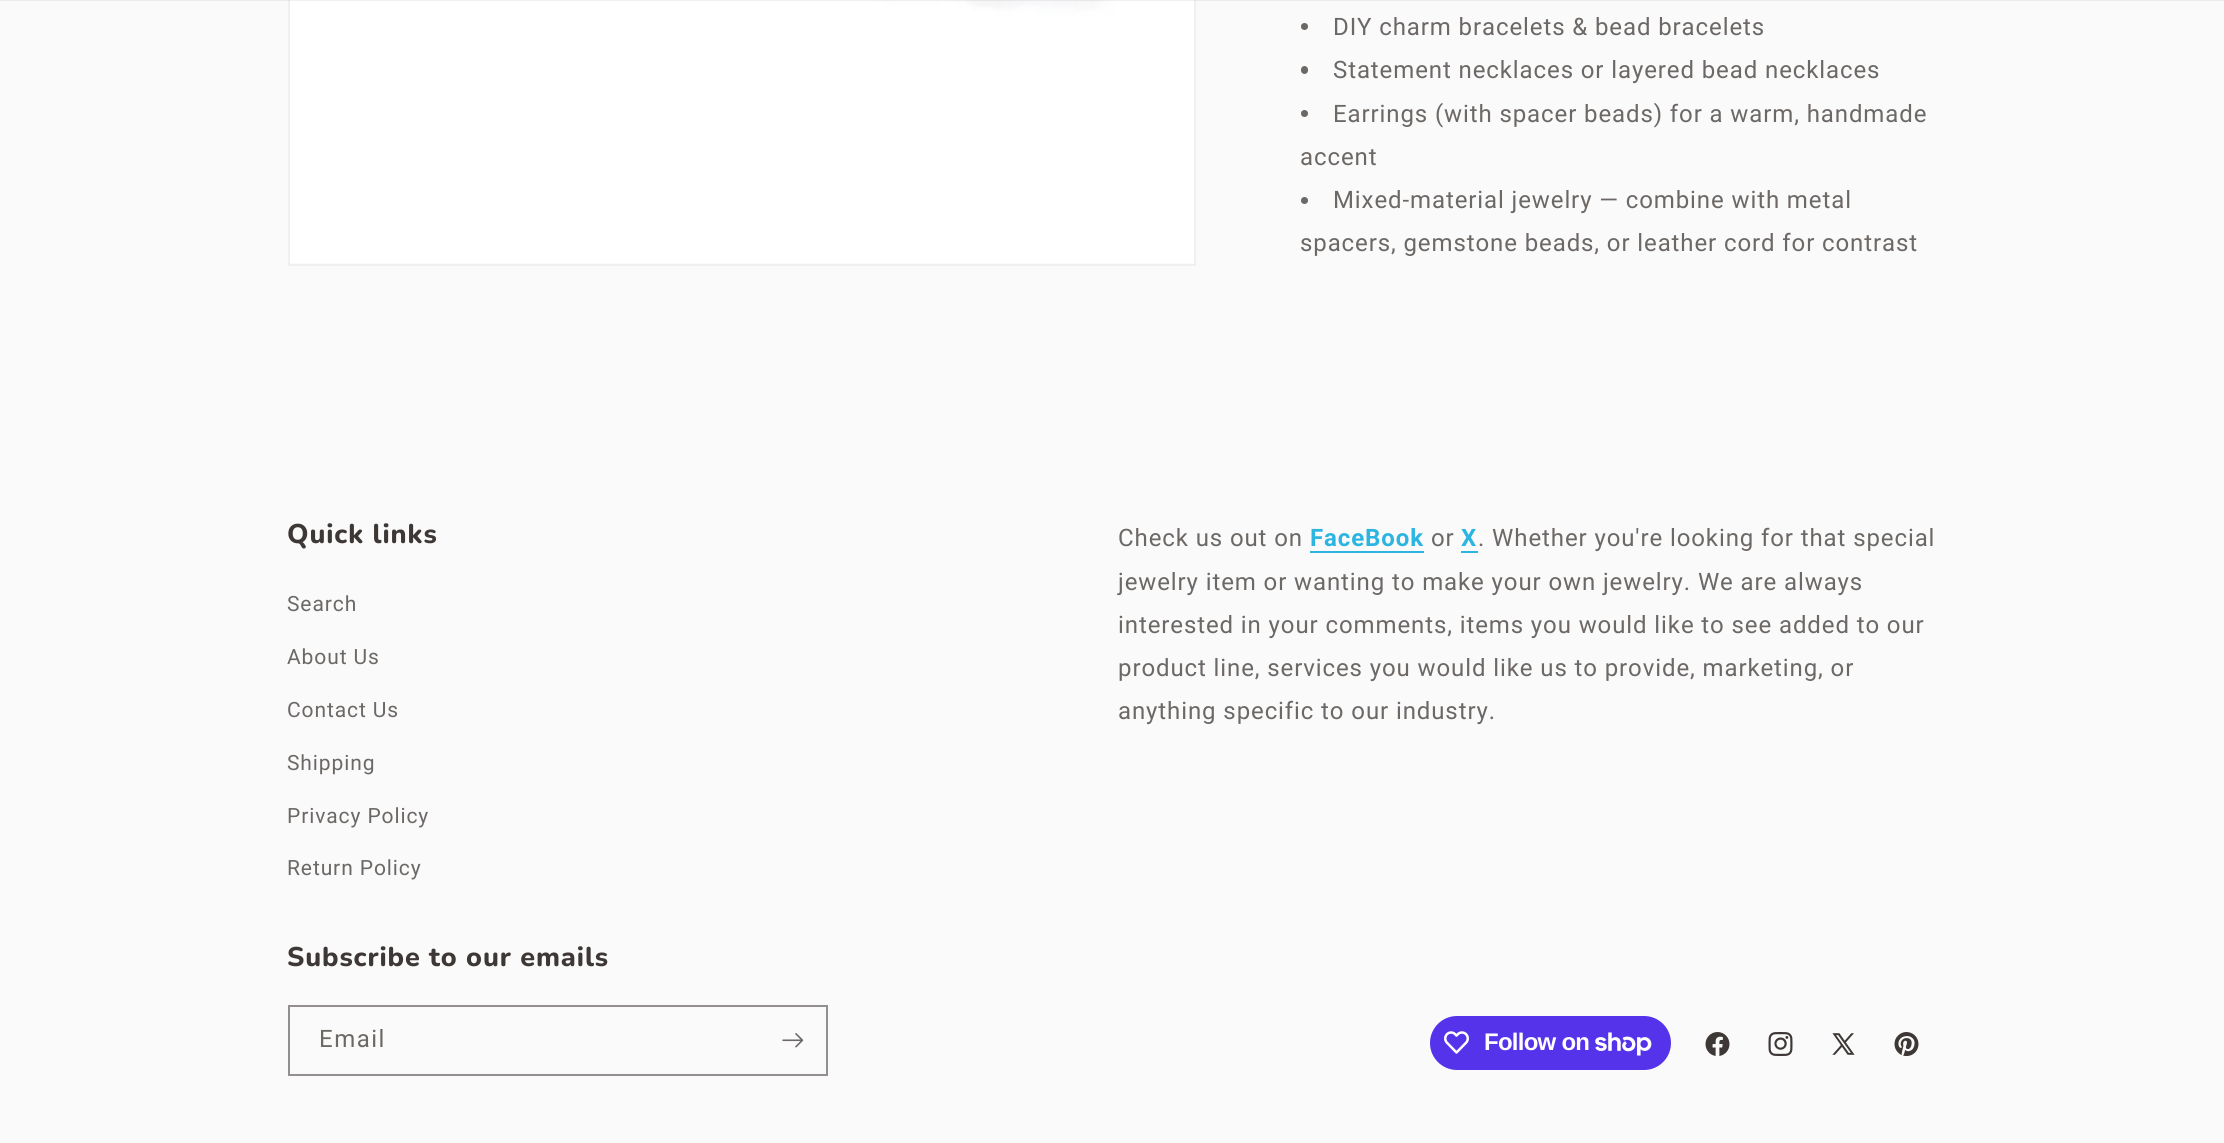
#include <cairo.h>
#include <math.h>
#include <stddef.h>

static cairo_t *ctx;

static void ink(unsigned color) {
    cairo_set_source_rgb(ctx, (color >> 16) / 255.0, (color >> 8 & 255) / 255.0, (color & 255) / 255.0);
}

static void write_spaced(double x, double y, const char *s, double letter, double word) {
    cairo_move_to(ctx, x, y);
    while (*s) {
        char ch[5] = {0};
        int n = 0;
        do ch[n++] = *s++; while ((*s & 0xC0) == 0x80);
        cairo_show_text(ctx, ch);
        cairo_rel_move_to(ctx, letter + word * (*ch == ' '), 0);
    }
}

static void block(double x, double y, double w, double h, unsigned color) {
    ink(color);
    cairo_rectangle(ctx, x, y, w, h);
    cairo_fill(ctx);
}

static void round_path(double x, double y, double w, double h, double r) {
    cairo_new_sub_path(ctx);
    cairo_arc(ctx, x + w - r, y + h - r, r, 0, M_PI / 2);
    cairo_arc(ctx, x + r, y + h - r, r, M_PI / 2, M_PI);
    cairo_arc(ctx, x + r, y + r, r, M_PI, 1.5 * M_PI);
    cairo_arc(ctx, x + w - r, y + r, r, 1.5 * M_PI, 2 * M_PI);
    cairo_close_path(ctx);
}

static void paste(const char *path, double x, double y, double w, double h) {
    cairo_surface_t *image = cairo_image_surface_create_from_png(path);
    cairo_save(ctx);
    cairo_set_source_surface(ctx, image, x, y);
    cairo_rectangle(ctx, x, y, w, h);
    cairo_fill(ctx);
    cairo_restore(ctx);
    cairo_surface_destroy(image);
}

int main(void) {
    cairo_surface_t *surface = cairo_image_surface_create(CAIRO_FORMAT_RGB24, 2224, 1143);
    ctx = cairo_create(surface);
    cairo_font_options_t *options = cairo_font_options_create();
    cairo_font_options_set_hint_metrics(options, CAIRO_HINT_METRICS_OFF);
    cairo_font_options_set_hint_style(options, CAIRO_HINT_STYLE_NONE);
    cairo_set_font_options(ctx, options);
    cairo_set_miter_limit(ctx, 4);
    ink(0xfafafa);
    cairo_paint(ctx);
    cairo_rectangle(ctx, 289, -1, 906, 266);
    ink(0xf1f0f0);
    cairo_stroke(ctx);
    paste("pic1.png", 290, 0, 904, 263);
    cairo_set_source_rgba(ctx, 0.239, 0.216, 0.208, 0.08);
    cairo_rectangle(ctx, 0, 0, 2224, 1);
    cairo_fill(ctx);
    ink(0x6c6866);
    cairo_arc(ctx, 1304.5, 26.5, 3.5, 0, 2 * M_PI);
    cairo_fill(ctx);
    cairo_select_font_face(ctx, "Roboto", CAIRO_FONT_SLANT_NORMAL, CAIRO_FONT_WEIGHT_NORMAL);
    cairo_set_font_size(ctx, 24);
    write_spaced(1333, 35, "DIY charm bracelets & bead bracelets", 0.9, 0);
    round_path(1301, 66, 7, 8, 3.5);
    cairo_fill(ctx);
    write_spaced(1333, 78, "Statement necklaces or layered bead necklaces", 0.9, 0);
    cairo_new_path(ctx);
    cairo_arc(ctx, 1304.5, 113.5, 3.5, 0, 2 * M_PI);
    cairo_fill(ctx);
    write_spaced(1333, 122, "Earrings (with spacer beads) for a warm, handmade", 0.9, 0);
    write_spaced(1300, 165, "accent", 0.9, 0);
    cairo_new_path(ctx);
    cairo_arc(ctx, 1304.5, 200.5, 3.5, 0, 2 * M_PI);
    cairo_fill(ctx);
    write_spaced(1333, 208, "Mixed-material jewelry — combine with metal", 0.9, 0);
    write_spaced(1300, 251, "spacers, gemstone beads, or leather cord for contrast", 0.9, 0);
    cairo_select_font_face(ctx, "Nunito ExtraBold", CAIRO_FONT_SLANT_NORMAL, CAIRO_FONT_WEIGHT_NORMAL);
    cairo_set_font_size(ctx, 27);
    ink(0x3d3735);
    write_spaced(287, 543, "Quick links", 0.9, 0);
    cairo_select_font_face(ctx, "Roboto", CAIRO_FONT_SLANT_NORMAL, CAIRO_FONT_WEIGHT_NORMAL);
    cairo_set_font_size(ctx, 21);
    ink(0x6c6866);
    write_spaced(287, 611, "Search", 0.9, 0);
    write_spaced(287, 664, "About Us", 0.9, 0);
    write_spaced(287, 717, "Contact Us", 0.9, 0);
    write_spaced(287, 770, "Shipping", 0.9, 0);
    write_spaced(287, 823, "Privacy Policy", 0.9, 0);
    write_spaced(287, 875, "Return Policy", 0.9, 0);
    cairo_set_font_size(ctx, 24);
    write_spaced(1118, 546, "Check us out on", 0.9, 0);
    cairo_select_font_face(ctx, "Roboto", CAIRO_FONT_SLANT_NORMAL, CAIRO_FONT_WEIGHT_BOLD);
    ink(0x2bb5e0);
    write_spaced(1310, 546, "FaceBook", 0.9, 0);
    block(1310, 551, 114, 2, 0x2bb5e0);
    cairo_select_font_face(ctx, "Roboto", CAIRO_FONT_SLANT_NORMAL, CAIRO_FONT_WEIGHT_NORMAL);
    ink(0x6c6866);
    write_spaced(1431, 546, "or", 0.9, 0);
    cairo_select_font_face(ctx, "Roboto", CAIRO_FONT_SLANT_NORMAL, CAIRO_FONT_WEIGHT_BOLD);
    ink(0x2bb5e0);
    write_spaced(1461, 546, "X", 0.9, 0);
    block(1461, 551, 17, 2, 0x2bb5e0);
    cairo_select_font_face(ctx, "Roboto", CAIRO_FONT_SLANT_NORMAL, CAIRO_FONT_WEIGHT_NORMAL);
    ink(0x6c6866);
    write_spaced(1478, 546, ". Whether you're looking for that special", 0.9, 0);
    write_spaced(1118, 590, "jewelry item or wanting to make your own jewelry. We are always", 0.9, 0);
    write_spaced(1118, 633, "interested in your comments, items you would like to see added to our", 0.9, 0);
    write_spaced(1118, 676, "product line, services you would like us to provide, marketing, or", 0.9, 0);
    write_spaced(1118, 719, "anything specific to our industry.", 0.9, 0);
    cairo_select_font_face(ctx, "Nunito ExtraBold", CAIRO_FONT_SLANT_NORMAL, CAIRO_FONT_WEIGHT_NORMAL);
    cairo_set_font_size(ctx, 27);
    ink(0x3d3735);
    write_spaced(287, 966, "Subscribe to our emails", 0.9, 0);
    cairo_rectangle(ctx, 289, 1006, 538, 69);
    ink(0x928f8e);
    cairo_stroke(ctx);
    cairo_select_font_face(ctx, "Roboto", CAIRO_FONT_SLANT_NORMAL, CAIRO_FONT_WEIGHT_NORMAL);
    cairo_set_font_size(ctx, 24);
    ink(0x6c6866);
    write_spaced(319, 1047, "Email", 1.5, 0);
    paste("pic2.png", 782, 1033, 22, 15);
    ink(0x5433eb);
    round_path(1430, 1016, 241, 54, 27);
    cairo_fill(ctx);
    paste("pic3.png", 1444, 1031, 25, 23);
    cairo_select_font_face(ctx, "Liberation Sans", CAIRO_FONT_SLANT_NORMAL, CAIRO_FONT_WEIGHT_BOLD);
    ink(0xffffff);
    write_spaced(1484, 1050, "Follow on", -0.75, 0);
    paste("pic4.png", 1595, 1032, 57, 24);
    paste("pic5.png", 1705, 1032, 25, 24);
    paste("pic6.png", 1768, 1032, 25, 24);
    paste("pic7.png", 1832, 1033, 23, 22);
    paste("pic8.png", 1894, 1032, 25, 25);
    cairo_surface_write_to_png(surface, "screenshot.png");
    cairo_font_options_destroy(options);
    cairo_destroy(ctx);
    cairo_surface_destroy(surface);
    return 0;
}
